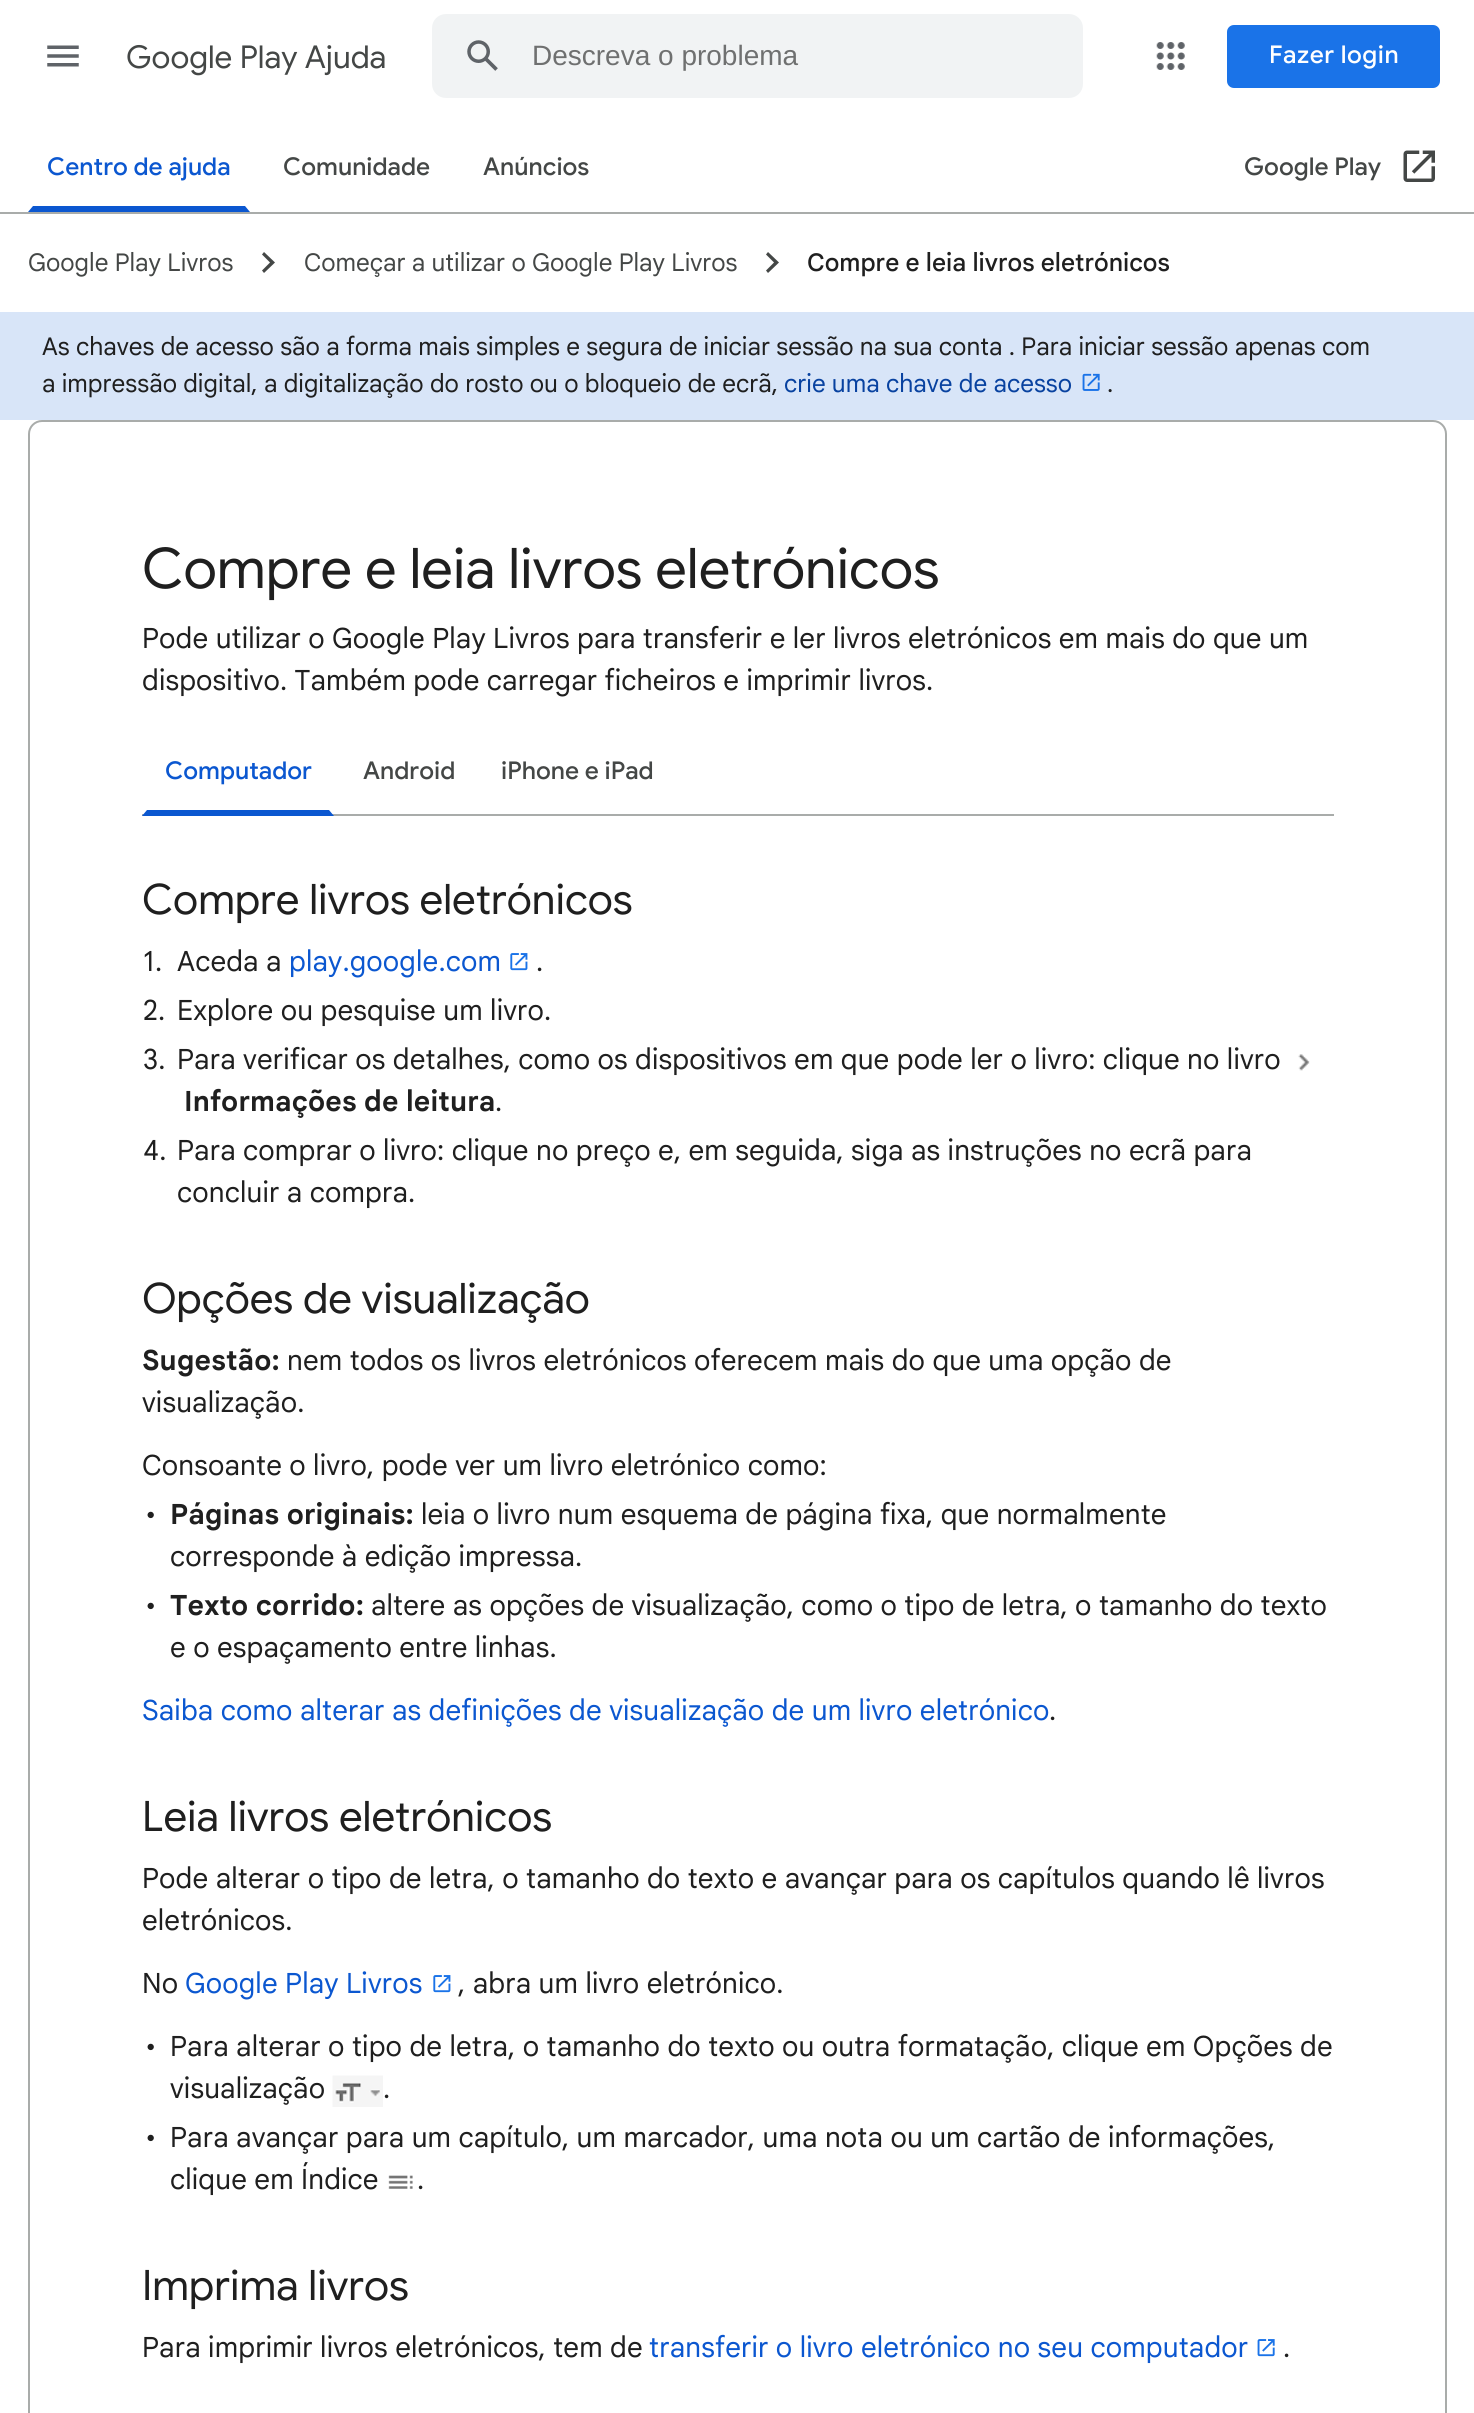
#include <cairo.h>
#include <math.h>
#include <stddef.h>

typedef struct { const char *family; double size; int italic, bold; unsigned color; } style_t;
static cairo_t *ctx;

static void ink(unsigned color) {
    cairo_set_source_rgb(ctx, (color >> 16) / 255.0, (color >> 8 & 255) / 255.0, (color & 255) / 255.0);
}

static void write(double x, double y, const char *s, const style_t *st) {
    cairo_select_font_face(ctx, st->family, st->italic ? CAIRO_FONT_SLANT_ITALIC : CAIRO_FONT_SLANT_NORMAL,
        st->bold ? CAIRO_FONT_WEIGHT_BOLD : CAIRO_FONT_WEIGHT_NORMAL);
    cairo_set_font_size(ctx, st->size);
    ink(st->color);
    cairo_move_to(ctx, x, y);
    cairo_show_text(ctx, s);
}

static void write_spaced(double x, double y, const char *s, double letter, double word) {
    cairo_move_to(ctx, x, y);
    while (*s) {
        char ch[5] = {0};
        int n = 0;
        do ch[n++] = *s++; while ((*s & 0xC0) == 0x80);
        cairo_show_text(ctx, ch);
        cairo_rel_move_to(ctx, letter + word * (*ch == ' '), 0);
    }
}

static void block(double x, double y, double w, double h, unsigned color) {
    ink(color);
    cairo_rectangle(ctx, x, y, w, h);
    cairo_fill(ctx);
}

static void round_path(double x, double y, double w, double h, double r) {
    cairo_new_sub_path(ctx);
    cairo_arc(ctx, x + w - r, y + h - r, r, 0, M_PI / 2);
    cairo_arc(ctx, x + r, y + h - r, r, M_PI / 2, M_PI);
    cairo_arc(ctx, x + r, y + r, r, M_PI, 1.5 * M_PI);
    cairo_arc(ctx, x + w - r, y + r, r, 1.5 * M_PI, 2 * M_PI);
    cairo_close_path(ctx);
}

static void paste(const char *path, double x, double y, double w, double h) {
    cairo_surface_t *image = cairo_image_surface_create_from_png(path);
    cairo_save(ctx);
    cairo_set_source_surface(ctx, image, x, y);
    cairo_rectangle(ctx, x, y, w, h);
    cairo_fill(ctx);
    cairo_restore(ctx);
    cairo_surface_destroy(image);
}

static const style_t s1 = {"Google Sans", 31.5, 0, 0, 0x444746};
static const style_t s2 = {"Liberation Sans", 28, 0, 0, 0x6f7070};
static const style_t s3 = {"Google Sans Medium", 24.5, 0, 0, 0x0b57d0};
static const style_t s4 = {"Google Sans Medium", 24.5, 0, 0, 0x444746};
static const style_t s5 = {"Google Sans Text", 24.5, 0, 0, 0x444746};
static const style_t s6 = {"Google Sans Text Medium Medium", 24.5, 0, 0, 0x1f1f1f};
static const style_t s7 = {"Google Sans Text", 24.5, 0, 0, 0x1f1f1f};
static const style_t s8 = {"Google Sans Text", 24.5, 0, 0, 0x0842a0};
static const style_t s9 = {"Google Sans", 56, 0, 0, 0x1f1f1f};
static const style_t s10 = {"Google Sans", 42, 0, 0, 0x1f1f1f};

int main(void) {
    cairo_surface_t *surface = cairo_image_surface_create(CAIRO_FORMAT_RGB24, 1474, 2413);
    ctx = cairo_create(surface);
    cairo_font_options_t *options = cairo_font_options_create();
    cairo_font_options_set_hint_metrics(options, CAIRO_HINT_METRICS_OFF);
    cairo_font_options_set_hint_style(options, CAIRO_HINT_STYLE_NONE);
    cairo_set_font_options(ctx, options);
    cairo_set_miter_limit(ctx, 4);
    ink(0xffffff);
    cairo_paint(ctx);
    paste("pic1.png", 47, 45, 32, 22);
    write(126, 68, "Google Play Ajuda", &s1);
    ink(0xf1f3f4);
    round_path(432, 14, 651, 84, 14);
    cairo_fill(ctx);
    paste("pic2.png", 467, 40, 31, 31);
    write(532, 65, "Descreva o problema", &s2);
    paste("pic3.png", 1156, 42, 29, 28);
    ink(0x1a73e8);
    round_path(1227, 25, 213, 63, 7);
    cairo_fill(ctx);
    cairo_select_font_face(ctx, "Google Sans Medium", CAIRO_FONT_SLANT_NORMAL, CAIRO_FONT_WEIGHT_NORMAL);
    cairo_set_font_size(ctx, 24.5);
    ink(0xffffff);
    write_spaced(1269, 63, "Fazer login", 0.5, 0);
    block(0, 212, 1474, 2, 0xa9acaa);
    ink(0x0b57d0);
    cairo_new_path(ctx);
    cairo_move_to(ctx, 250, 212);
    cairo_line_to(ctx, 28, 212);
    cairo_line_to(ctx, 33, 206);
    cairo_line_to(ctx, 245, 206);
    cairo_close_path(ctx);
    cairo_fill(ctx);
    write(47, 175, "Centro de ajuda", &s3);
    write(283, 175, "Comunidade", &s4);
    write(483, 175, "Anúncios", &s4);
    write(1244, 175, "Google Play", &s4);
    paste("pic4.png", 1403, 150, 32, 32);
    write(28, 271, "Google Play Livros", &s5);
    cairo_new_path(ctx);
    cairo_move_to(ctx, 262, 270.5);
    cairo_line_to(ctx, 270, 262.5);
    cairo_line_to(ctx, 262, 254.5);
    cairo_line_to(ctx, 264, 252);
    cairo_line_to(ctx, 275, 262.5);
    cairo_line_to(ctx, 264, 273);
    cairo_close_path(ctx);
    cairo_fill(ctx);
    write(304, 271, "Começar a utilizar o Google Play Livros", &s5);
    cairo_new_path(ctx);
    cairo_move_to(ctx, 766, 270.5);
    cairo_line_to(ctx, 774, 262.5);
    cairo_line_to(ctx, 766, 254.5);
    cairo_line_to(ctx, 768, 252);
    cairo_line_to(ctx, 779, 262.5);
    cairo_line_to(ctx, 768, 273);
    cairo_close_path(ctx);
    cairo_fill(ctx);
    write(807, 271, "Compre e leia livros eletrónicos", &s6);
    block(0, 312, 1474, 108, 0xd8e5f8);
    write(42, 355, "As chaves de acesso são a forma mais simples e segura de iniciar sessão na sua conta . Para iniciar sessão apenas com", &s7);
    write(42, 392, "a impressão digital, a digitalização do rosto ou o bloqueio de ecrã,", &s7);
    write(784, 392, "crie uma chave de acesso", &s8);
    paste("pic5.png", 1082, 373, 18, 18);
    write(1107, 392, ".", &s7);
    round_path(29, 421, 1417, 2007, 13);
    ink(0xa9acaa);
    cairo_stroke(ctx);
    write(142, 588, "Compre e leia livros eletrónicos", &s9);
    cairo_select_font_face(ctx, "Google Sans Text", CAIRO_FONT_SLANT_NORMAL, CAIRO_FONT_WEIGHT_NORMAL);
    cairo_set_font_size(ctx, 28);
    write_spaced(142, 648, "Pode utilizar o Google Play Livros para transferir e ler livros eletrónicos em mais do que um", 0.15, 0);
    write_spaced(142, 690, "dispositivo. Também pode carregar ficheiros e imprimir livros.", 0.15, 0);
    block(142, 814, 1192, 2, 0xa9acaa);
    ink(0x0b57d0);
    cairo_new_path(ctx);
    cairo_move_to(ctx, 334, 816);
    cairo_line_to(ctx, 142, 816);
    cairo_line_to(ctx, 147, 810);
    cairo_line_to(ctx, 329, 810);
    cairo_close_path(ctx);
    cairo_fill(ctx);
    write(165, 779, "Computador", &s3);
    write(363, 779, "Android", &s4);
    write(501, 779, "iPhone e iPad", &s4);
    write(142, 914, "Compre livros eletrónicos", &s10);
    cairo_select_font_face(ctx, "Google Sans Text", CAIRO_FONT_SLANT_NORMAL, CAIRO_FONT_WEIGHT_NORMAL);
    cairo_set_font_size(ctx, 28);
    write_spaced(143, 971, "1.", 0.15, 0);
    write_spaced(177, 971, "Aceda a", 0.15, 0);
    ink(0x0b57d0);
    write_spaced(289, 971, "play.google.com", 0.15, 0);
    paste("pic6.png", 510, 953, 18, 18);
    ink(0x1f1f1f);
    write_spaced(536, 971, ".", 0.15, 0);
    write_spaced(143, 1020, "2.", 0.15, 0);
    write_spaced(177, 1020, "Explore ou pesquise um livro.", 0.15, 0);
    write_spaced(143, 1069, "3.", 0.15, 0);
    write_spaced(177, 1069, "Para verificar os detalhes, como os dispositivos em que pode ler o livro: clique no livro", 0.15, 0);
    paste("pic7.png", 1298, 1054, 12, 17);
    cairo_select_font_face(ctx, "Google Sans Text", CAIRO_FONT_SLANT_NORMAL, CAIRO_FONT_WEIGHT_BOLD);
    write_spaced(184, 1111, "Informações de leitura", 0.15, 0);
    cairo_select_font_face(ctx, "Google Sans Text", CAIRO_FONT_SLANT_NORMAL, CAIRO_FONT_WEIGHT_NORMAL);
    write_spaced(495, 1111, ".", 0.15, 0);
    write_spaced(143, 1160, "4.", 0.15, 0);
    write_spaced(177, 1160, "Para comprar o livro: clique no preço e, em seguida, siga as instruções no ecrã para", 0.15, 0);
    write_spaced(177, 1202, "concluir a compra.", 0.15, 0);
    write(142, 1313, "Opções de visualização", &s10);
    cairo_select_font_face(ctx, "Google Sans Text", CAIRO_FONT_SLANT_NORMAL, CAIRO_FONT_WEIGHT_BOLD);
    cairo_set_font_size(ctx, 28);
    write_spaced(142, 1370, "Sugestão:", 0.15, 0);
    cairo_select_font_face(ctx, "Google Sans Text", CAIRO_FONT_SLANT_NORMAL, CAIRO_FONT_WEIGHT_NORMAL);
    write_spaced(287, 1370, "nem todos os livros eletrónicos oferecem mais do que uma opção de", 0.15, 0);
    write_spaced(142, 1412, "visualização.", 0.15, 0);
    write_spaced(142, 1475, "Consoante o livro, pode ver um livro eletrónico como:", 0.15, 0);
    write_spaced(145, 1524, "•", 0.15, 0);
    cairo_select_font_face(ctx, "Google Sans Text", CAIRO_FONT_SLANT_NORMAL, CAIRO_FONT_WEIGHT_BOLD);
    write_spaced(170, 1524, "Páginas originais:", 0.15, 0);
    cairo_select_font_face(ctx, "Google Sans Text", CAIRO_FONT_SLANT_NORMAL, CAIRO_FONT_WEIGHT_NORMAL);
    write_spaced(421, 1524, "leia o livro num esquema de página fixa, que normalmente", 0.15, 0);
    write_spaced(170, 1566, "corresponde à edição impressa.", 0.15, 0);
    write_spaced(145, 1615, "•", 0.15, 0);
    cairo_select_font_face(ctx, "Google Sans Text", CAIRO_FONT_SLANT_NORMAL, CAIRO_FONT_WEIGHT_BOLD);
    write_spaced(170, 1615, "Texto corrido:", 0.15, 0);
    cairo_select_font_face(ctx, "Google Sans Text", CAIRO_FONT_SLANT_NORMAL, CAIRO_FONT_WEIGHT_NORMAL);
    write_spaced(371, 1615, "altere as opções de visualização, como o tipo de letra, o tamanho do texto", 0.15, 0);
    write_spaced(170, 1657, "e o espaçamento entre linhas.", 0.15, 0);
    ink(0x0b57d0);
    write_spaced(142, 1720, "Saiba como alterar as definições de visualização de um livro eletrónico", 0.15, 0);
    ink(0x1f1f1f);
    write_spaced(1049, 1720, ".", 0.15, 0);
    write(142, 1831, "Leia livros eletrónicos", &s10);
    cairo_select_font_face(ctx, "Google Sans Text", CAIRO_FONT_SLANT_NORMAL, CAIRO_FONT_WEIGHT_NORMAL);
    cairo_set_font_size(ctx, 28);
    write_spaced(142, 1888, "Pode alterar o tipo de letra, o tamanho do texto e avançar para os capítulos quando lê livros", 0.15, 0);
    write_spaced(142, 1930, "eletrónicos.", 0.15, 0);
    write_spaced(142, 1993, "No", 0.15, 0);
    ink(0x0b57d0);
    write_spaced(185, 1993, "Google Play Livros", 0.15, 0);
    paste("pic6.png", 433, 1975, 18, 18);
    ink(0x1f1f1f);
    write_spaced(458, 1993, ", abra um livro eletrónico.", 0.15, 0);
    write_spaced(145, 2056, "•", 0.15, 0);
    write_spaced(170, 2056, "Para alterar o tipo de letra, o tamanho do texto ou outra formatação, clique em Opções de", 0.15, 0);
    write_spaced(170, 2098, "visualização", 0.15, 0);
    paste("pic8.png", 332, 2075, 51, 32);
    write_spaced(383, 2098, ".", 0.15, 0);
    write_spaced(145, 2147, "•", 0.15, 0);
    write_spaced(170, 2147, "Para avançar para um capítulo, um marcador, uma nota ou um cartão de informações,", 0.15, 0);
    write_spaced(170, 2189, "clique em Índice", 0.15, 0);
    paste("pic9.png", 388, 2175, 25, 14);
    write_spaced(417, 2189, ".", 0.15, 0);
    write(142, 2300, "Imprima livros", &s10);
    cairo_select_font_face(ctx, "Google Sans Text", CAIRO_FONT_SLANT_NORMAL, CAIRO_FONT_WEIGHT_NORMAL);
    cairo_set_font_size(ctx, 28);
    write_spaced(142, 2357, "Para imprimir livros eletrónicos, tem de", 0.15, 0);
    ink(0x0b57d0);
    write_spaced(649, 2357, "transferir o livro eletrónico no seu computador", 0.15, 0);
    paste("pic10.png", 1257, 2339, 18, 18);
    ink(0x1f1f1f);
    write_spaced(1283, 2357, ".", 0.15, 0);
    cairo_surface_write_to_png(surface, "screenshot.png");
    cairo_font_options_destroy(options);
    cairo_destroy(ctx);
    cairo_surface_destroy(surface);
    return 0;
}
